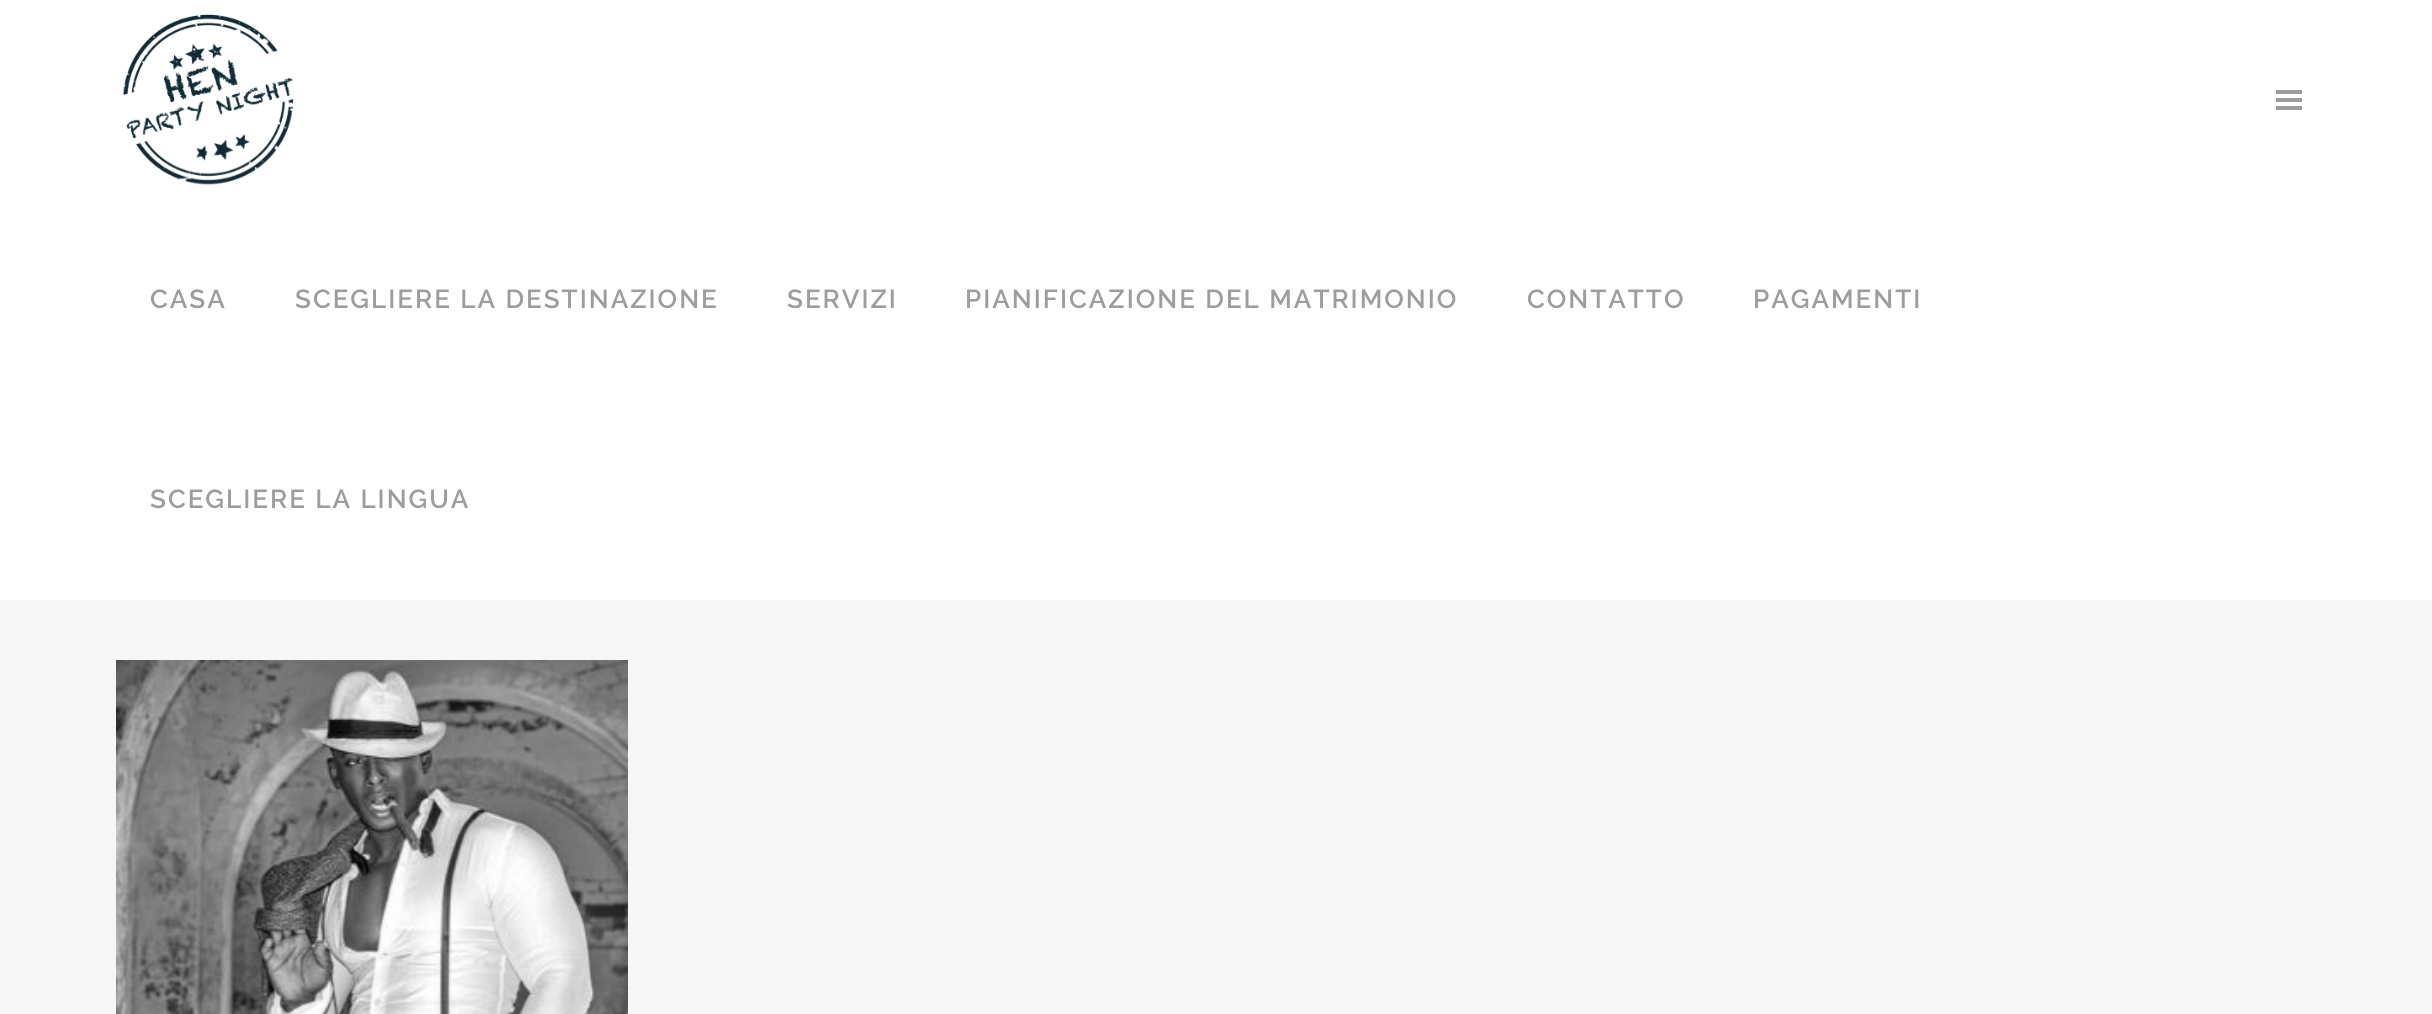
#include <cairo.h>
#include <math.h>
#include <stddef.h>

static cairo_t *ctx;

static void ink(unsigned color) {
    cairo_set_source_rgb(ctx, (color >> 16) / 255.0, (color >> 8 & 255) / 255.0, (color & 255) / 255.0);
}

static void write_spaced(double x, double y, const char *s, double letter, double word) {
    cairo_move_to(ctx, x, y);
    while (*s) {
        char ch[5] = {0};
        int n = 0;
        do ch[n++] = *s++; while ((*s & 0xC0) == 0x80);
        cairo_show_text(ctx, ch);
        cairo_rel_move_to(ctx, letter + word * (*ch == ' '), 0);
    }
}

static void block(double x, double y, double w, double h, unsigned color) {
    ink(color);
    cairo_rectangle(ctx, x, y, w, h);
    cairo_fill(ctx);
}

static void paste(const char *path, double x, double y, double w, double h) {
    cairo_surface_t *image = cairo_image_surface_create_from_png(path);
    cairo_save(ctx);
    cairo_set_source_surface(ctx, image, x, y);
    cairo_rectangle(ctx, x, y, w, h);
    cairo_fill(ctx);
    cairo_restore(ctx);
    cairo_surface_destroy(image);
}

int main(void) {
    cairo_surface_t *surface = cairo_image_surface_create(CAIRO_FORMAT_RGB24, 2432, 1014);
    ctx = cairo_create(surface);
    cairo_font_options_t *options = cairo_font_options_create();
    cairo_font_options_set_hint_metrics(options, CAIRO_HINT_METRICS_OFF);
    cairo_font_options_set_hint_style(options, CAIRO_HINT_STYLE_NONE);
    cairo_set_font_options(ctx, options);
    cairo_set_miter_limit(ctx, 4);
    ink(0xf6f6f6);
    cairo_paint(ctx);
    block(0, 0, 2432, 600, 0xffffff);
    paste("pic1.png", 122, 14, 172, 171);
    block(2276, 98, 26, 4, 0x9d9d9d);
    block(2276, 90, 26, 4, 0x9d9d9d);
    block(2276, 106, 26, 4, 0x9d9d9d);
    cairo_select_font_face(ctx, "Raleway SemiBold", CAIRO_FONT_SLANT_NORMAL, CAIRO_FONT_WEIGHT_NORMAL);
    cairo_set_font_size(ctx, 26);
    write_spaced(150, 308, "CASA", 2, 0);
    write_spaced(295, 308, "SCEGLIERE LA DESTINAZIONE", 2, 0);
    write_spaced(787, 308, "SERVIZI", 2, 0);
    write_spaced(965, 308, "PIANIFICAZIONE DEL MATRIMONIO", 2, 0);
    write_spaced(1527, 308, "CONTATTO", 2, 0);
    write_spaced(1753, 308, "PAGAMENTI", 2, 0);
    write_spaced(150, 508, "SCEGLIERE LA LINGUA", 2, 0);
    paste("pic2.png", 116, 660, 512, 354);
    cairo_surface_write_to_png(surface, "screenshot.png");
    cairo_font_options_destroy(options);
    cairo_destroy(ctx);
    cairo_surface_destroy(surface);
    return 0;
}
